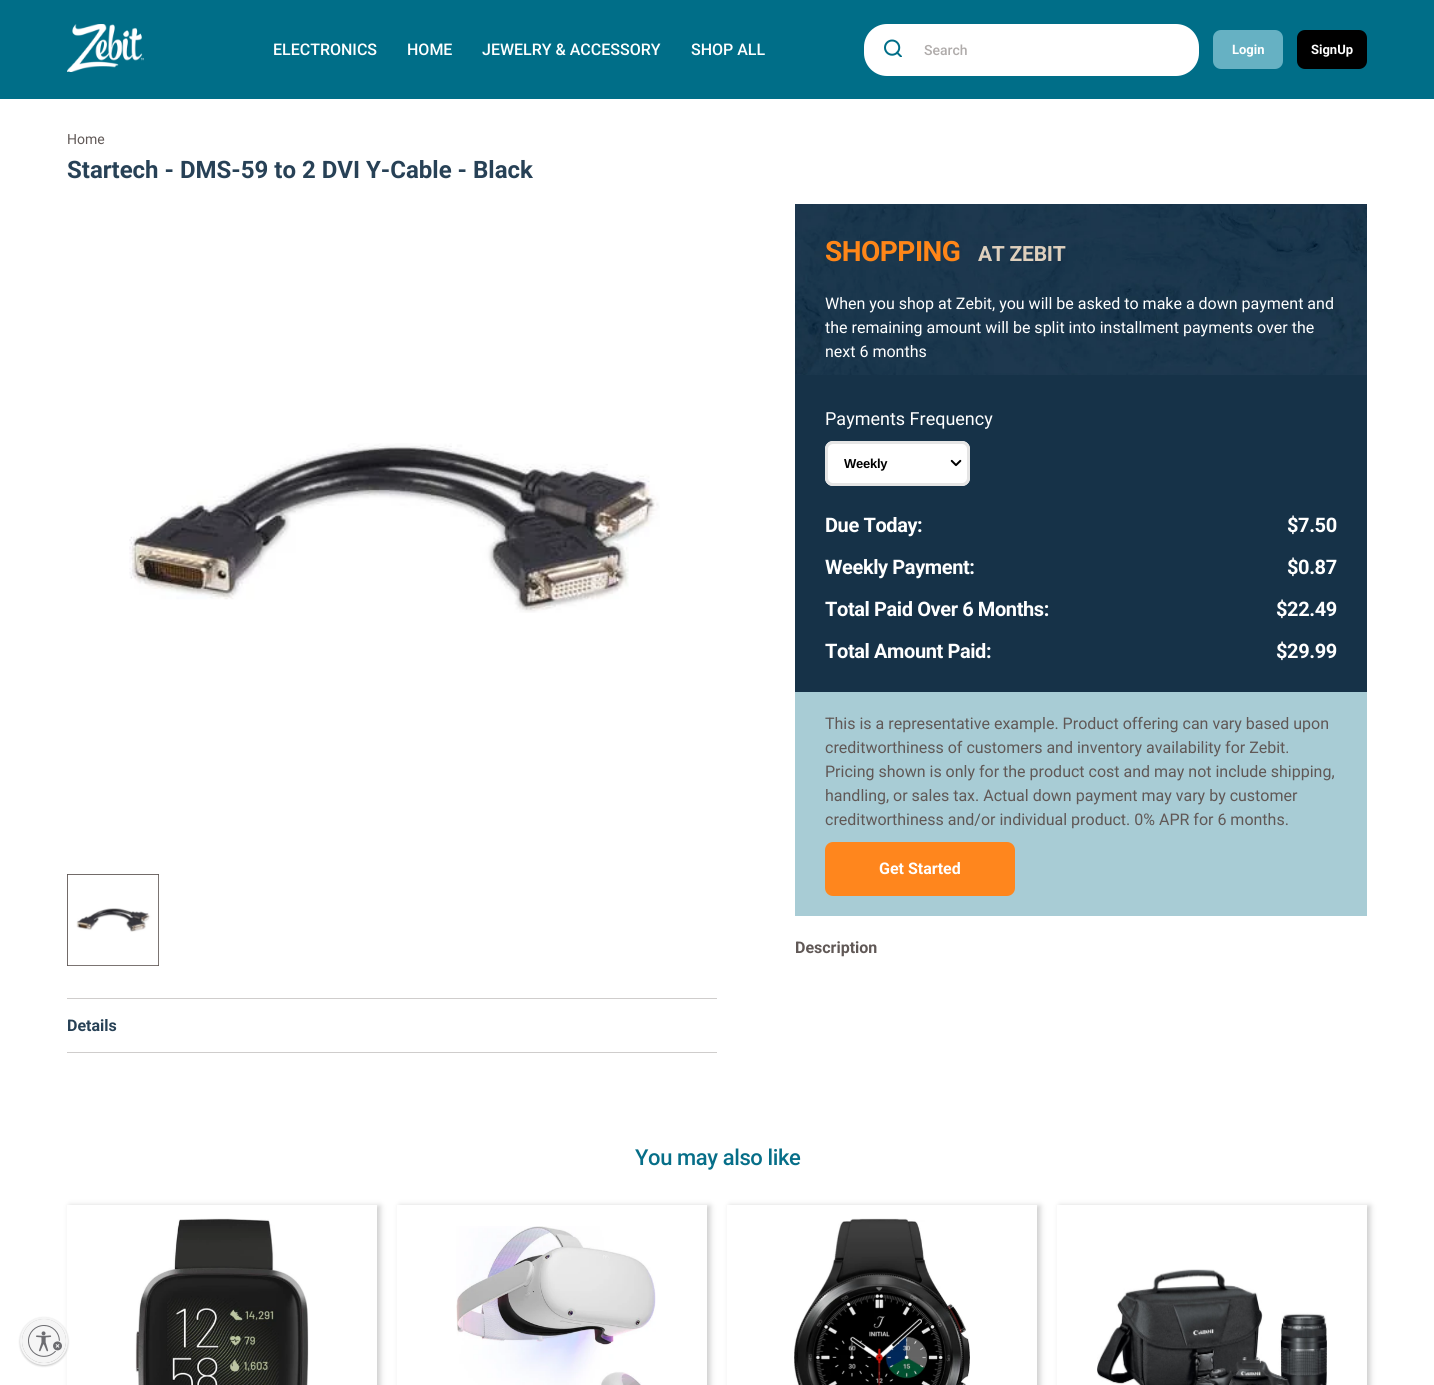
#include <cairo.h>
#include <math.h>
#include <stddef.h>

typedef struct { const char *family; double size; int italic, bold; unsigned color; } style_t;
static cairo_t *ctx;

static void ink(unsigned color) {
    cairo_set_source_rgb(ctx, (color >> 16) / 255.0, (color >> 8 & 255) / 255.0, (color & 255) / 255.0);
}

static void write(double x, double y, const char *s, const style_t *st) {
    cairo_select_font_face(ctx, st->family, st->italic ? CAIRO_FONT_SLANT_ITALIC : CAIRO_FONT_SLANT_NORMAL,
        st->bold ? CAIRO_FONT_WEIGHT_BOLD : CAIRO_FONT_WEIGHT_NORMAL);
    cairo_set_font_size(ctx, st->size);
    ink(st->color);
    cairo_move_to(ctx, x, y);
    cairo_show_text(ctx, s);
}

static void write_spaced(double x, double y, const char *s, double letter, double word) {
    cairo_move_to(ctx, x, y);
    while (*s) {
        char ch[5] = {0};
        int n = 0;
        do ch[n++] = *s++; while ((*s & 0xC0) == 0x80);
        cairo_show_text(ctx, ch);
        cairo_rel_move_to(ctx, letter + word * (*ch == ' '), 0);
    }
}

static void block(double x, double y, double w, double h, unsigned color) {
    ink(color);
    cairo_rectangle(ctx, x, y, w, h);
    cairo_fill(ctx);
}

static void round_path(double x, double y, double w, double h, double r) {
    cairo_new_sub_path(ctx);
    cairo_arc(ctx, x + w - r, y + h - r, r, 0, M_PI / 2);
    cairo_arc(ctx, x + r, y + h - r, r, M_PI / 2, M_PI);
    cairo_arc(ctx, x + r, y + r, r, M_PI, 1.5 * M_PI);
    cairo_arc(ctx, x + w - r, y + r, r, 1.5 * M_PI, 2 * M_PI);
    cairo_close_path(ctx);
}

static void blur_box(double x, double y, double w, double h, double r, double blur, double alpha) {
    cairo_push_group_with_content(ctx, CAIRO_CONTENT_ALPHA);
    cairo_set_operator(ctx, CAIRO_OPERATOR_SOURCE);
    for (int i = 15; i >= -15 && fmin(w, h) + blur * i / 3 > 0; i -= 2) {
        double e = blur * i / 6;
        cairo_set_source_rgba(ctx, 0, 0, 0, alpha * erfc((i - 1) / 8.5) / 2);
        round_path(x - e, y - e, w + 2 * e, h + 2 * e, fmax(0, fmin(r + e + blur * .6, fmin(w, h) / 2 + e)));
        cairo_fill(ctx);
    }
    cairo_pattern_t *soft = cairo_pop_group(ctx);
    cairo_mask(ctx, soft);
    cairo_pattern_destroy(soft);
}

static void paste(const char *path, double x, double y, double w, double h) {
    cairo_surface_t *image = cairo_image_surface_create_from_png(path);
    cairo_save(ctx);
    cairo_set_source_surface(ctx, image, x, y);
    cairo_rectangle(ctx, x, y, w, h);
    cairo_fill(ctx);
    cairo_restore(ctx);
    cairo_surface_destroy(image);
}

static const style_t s1 = {"Roboto Medium", 16, 0, 0, 0xffffff};
static const style_t s2 = {"Roboto Medium", 14, 0, 0, 0xb0acab};
static const style_t s3 = {"Roboto", 13, 0, 1, 0xffffff};
static const style_t s4 = {"Roboto", 14, 0, 0, 0x605856};
static const style_t s5 = {"Roboto", 24, 0, 1, 0x274156};
static const style_t s6 = {"Roboto", 16, 0, 0, 0xffffff};
static const style_t s7 = {"Roboto", 18, 0, 0, 0xffffff};
static const style_t s8 = {"Roboto", 16, 0, 0, 0x605856};
static const style_t s9 = {"Roboto", 16, 0, 1, 0xffffff};
static const style_t s10 = {"Roboto", 16, 0, 1, 0x605856};
static const style_t s11 = {"Roboto", 16, 0, 1, 0x274156};

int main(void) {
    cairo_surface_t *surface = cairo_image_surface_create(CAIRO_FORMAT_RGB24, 1434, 1385);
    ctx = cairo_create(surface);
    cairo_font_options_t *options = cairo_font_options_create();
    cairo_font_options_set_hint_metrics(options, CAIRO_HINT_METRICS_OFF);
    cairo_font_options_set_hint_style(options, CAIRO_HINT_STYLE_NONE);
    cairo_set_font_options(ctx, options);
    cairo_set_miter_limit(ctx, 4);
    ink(0xffffff);
    cairo_paint(ctx);
    block(0, 0, 1434, 99, 0x006e88);
    paste("pic1.png", 67, 24, 77, 48);
    write(273, 55, "ELECTRONICS", &s1);
    write(407, 55, "HOME", &s1);
    write(482, 55, "JEWELRY & ACCESSORY", &s1);
    write(691, 55, "SHOP ALL", &s1);
    round_path(864, 24, 335, 52, 23);
    cairo_fill(ctx);
    paste("pic2.png", 884, 39, 18, 18);
    write(924, 55, "Search", &s2);
    ink(0x66b1c3);
    round_path(1213, 30, 70, 39, 8);
    cairo_fill(ctx);
    write(1232, 54, "Login", &s3);
    ink(0x000000);
    round_path(1297, 30, 70, 39, 8);
    cairo_fill(ctx);
    write(1311, 54, "SignUp", &s3);
    write(67, 144, "Home", &s4);
    write(67, 178, "Startech - DMS-59 to 2 DVI Y-Cable - Black", &s5);
    block(795, 692, 572, 224, 0xa8ccd5);
    paste("pic3.png", 795, 204, 572, 171);
    cairo_set_font_size(ctx, 28);
    ink(0xff8618);
    write_spaced(825, 261, "SHOPPING", -0.5, 0);
    cairo_set_font_size(ctx, 21);
    ink(0xdfd0bd);
    write_spaced(978, 261, "AT ZEBIT", -0.25, 0);
    write(825, 309, "When you shop at Zebit, you will be asked to make a down payment and", &s6);
    write(825, 333, "the remaining amount will be split into installment payments over the", &s6);
    write(825, 357, "next 6 months", &s6);
    block(795, 375, 572, 317, 0x163248);
    write(825, 425, "Payments Frequency", &s7);
    round_path(825, 441, 145, 45, 8);
    cairo_fill(ctx);
    paste("pic4.png", 950, 459, 12, 8);
    round_path(826.5, 442.5, 142, 42, 6.5);
    ink(0xe5e5e5);
    cairo_set_line_width(ctx, 3);
    cairo_stroke(ctx);
    cairo_select_font_face(ctx, "Liberation Sans", CAIRO_FONT_SLANT_NORMAL, CAIRO_FONT_WEIGHT_BOLD);
    cairo_set_font_size(ctx, 13);
    ink(0x000000);
    write_spaced(844, 468, "Weekly", -0.25, 0);
    cairo_select_font_face(ctx, "Roboto", CAIRO_FONT_SLANT_NORMAL, CAIRO_FONT_WEIGHT_BOLD);
    cairo_set_font_size(ctx, 20);
    ink(0xffffff);
    write_spaced(825, 532, "Due Today:", -0.4, 0);
    write_spaced(1287, 532, "$7.50", -0.4, 0);
    write_spaced(825, 574, "Weekly Payment:", -0.4, 0);
    write_spaced(1287, 574, "$0.87", -0.4, 0);
    write_spaced(825, 616, "Total Paid Over 6 Months:", -0.4, 0);
    write_spaced(1276, 616, "$22.49", -0.4, 0);
    write_spaced(825, 658, "Total Amount Paid:", -0.4, 0);
    write_spaced(1276, 658, "$29.99", -0.4, 0);
    write(825, 729, "This is a representative example. Product offering can vary based upon", &s8);
    write(825, 753, "creditworthiness of customers and inventory availability for Zebit.", &s8);
    write(825, 777, "Pricing shown is only for the product cost and may not include shipping,", &s8);
    write(825, 801, "handling, or sales tax. Actual down payment may vary by customer", &s8);
    write(825, 825, "creditworthiness and/or individual product. 0% APR for 6 months.", &s8);
    ink(0xff861d);
    round_path(826, 843, 188, 52, 7);
    cairo_fill_preserve(ctx);
    cairo_set_line_width(ctx, 2);
    cairo_stroke(ctx);
    write(879, 874, "Get Started", &s9);
    write(795, 953, "Description", &s10);
    paste("pic5.png", 129, 443, 531, 170);
    cairo_rectangle(ctx, 67.5, 874.5, 91, 91);
    cairo_set_line_width(ctx, 1);
    cairo_stroke(ctx);
    paste("pic6.png", 67, 874, 92, 92);
    block(67, 998, 650, 1, 0xcfcdcc);
    block(67, 1052, 650, 1, 0xcfcdcc);
    write(67, 1031, "Details", &s11);
    cairo_select_font_face(ctx, "Roboto Medium", CAIRO_FONT_SLANT_NORMAL, CAIRO_FONT_WEIGHT_NORMAL);
    cairo_set_font_size(ctx, 22);
    ink(0x066e88);
    write_spaced(635, 1165, "You may also like", -0.4, 0);
    paste("pic7.png", 135, 1218, 174, 167);
    cairo_save(ctx);
    cairo_set_fill_rule(ctx, CAIRO_FILL_RULE_EVEN_ODD);
    cairo_new_path(ctx);
    cairo_move_to(ctx, 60, 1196);
    cairo_line_to(ctx, 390, 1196);
    cairo_line_to(ctx, 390, 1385);
    cairo_line_to(ctx, 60, 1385);
    cairo_close_path(ctx);
    cairo_move_to(ctx, 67, 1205);
    cairo_line_to(ctx, 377, 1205);
    cairo_line_to(ctx, 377, 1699);
    cairo_line_to(ctx, 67, 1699);
    cairo_close_path(ctx);
    cairo_clip(ctx);
    ink(0xcccccc);
    blur_box(70, 1206, 310, 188, 0, 3, 1);
    cairo_restore(ctx);
    paste("pic8.png", 456, 1226, 200, 159);
    cairo_save(ctx);
    cairo_set_fill_rule(ctx, CAIRO_FILL_RULE_EVEN_ODD);
    cairo_new_path(ctx);
    cairo_move_to(ctx, 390, 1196);
    cairo_line_to(ctx, 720, 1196);
    cairo_line_to(ctx, 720, 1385);
    cairo_line_to(ctx, 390, 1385);
    cairo_close_path(ctx);
    cairo_move_to(ctx, 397, 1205);
    cairo_line_to(ctx, 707, 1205);
    cairo_line_to(ctx, 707, 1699);
    cairo_line_to(ctx, 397, 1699);
    cairo_close_path(ctx);
    cairo_clip(ctx);
    ink(0xcccccc);
    blur_box(400, 1206, 310, 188, 0, 3, 1);
    cairo_restore(ctx);
    paste("pic9.png", 794, 1218, 176, 167);
    cairo_save(ctx);
    cairo_set_fill_rule(ctx, CAIRO_FILL_RULE_EVEN_ODD);
    cairo_new_path(ctx);
    cairo_move_to(ctx, 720, 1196);
    cairo_line_to(ctx, 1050, 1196);
    cairo_line_to(ctx, 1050, 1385);
    cairo_line_to(ctx, 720, 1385);
    cairo_close_path(ctx);
    cairo_move_to(ctx, 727, 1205);
    cairo_line_to(ctx, 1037, 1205);
    cairo_line_to(ctx, 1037, 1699);
    cairo_line_to(ctx, 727, 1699);
    cairo_close_path(ctx);
    cairo_clip(ctx);
    ink(0xcccccc);
    blur_box(730, 1206, 310, 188, 0, 3, 1);
    cairo_restore(ctx);
    paste("pic10.png", 1097, 1269, 230, 116);
    cairo_save(ctx);
    cairo_set_fill_rule(ctx, CAIRO_FILL_RULE_EVEN_ODD);
    cairo_new_path(ctx);
    cairo_move_to(ctx, 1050, 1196);
    cairo_line_to(ctx, 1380, 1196);
    cairo_line_to(ctx, 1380, 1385);
    cairo_line_to(ctx, 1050, 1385);
    cairo_close_path(ctx);
    cairo_move_to(ctx, 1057, 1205);
    cairo_line_to(ctx, 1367, 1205);
    cairo_line_to(ctx, 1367, 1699);
    cairo_line_to(ctx, 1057, 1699);
    cairo_close_path(ctx);
    cairo_clip(ctx);
    ink(0xcccccc);
    blur_box(1060, 1206, 310, 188, 0, 3, 1);
    cairo_restore(ctx);
    ink(0x000000);
    blur_box(20, 1318, 48, 48, 24, 1, 0.24);
    cairo_arc(ctx, 44, 1341, 23, 0, 2 * M_PI);
    ink(0xf5f5f5);
    cairo_set_line_width(ctx, 2);
    cairo_stroke(ctx);
    cairo_save(ctx);
    round_path(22, 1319, 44, 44, 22);
    cairo_clip(ctx);
    ink(0x000000);
    blur_box(22, 1320, 44, 44, 22, 1, 0.24);
    cairo_restore(ctx);
    cairo_arc(ctx, 44, 1341, 22, 0, 2 * M_PI);
    cairo_fill(ctx);
    paste("pic11.png", 28, 1325, 34, 32);
    cairo_surface_write_to_png(surface, "screenshot.png");
    cairo_font_options_destroy(options);
    cairo_destroy(ctx);
    cairo_surface_destroy(surface);
    return 0;
}
